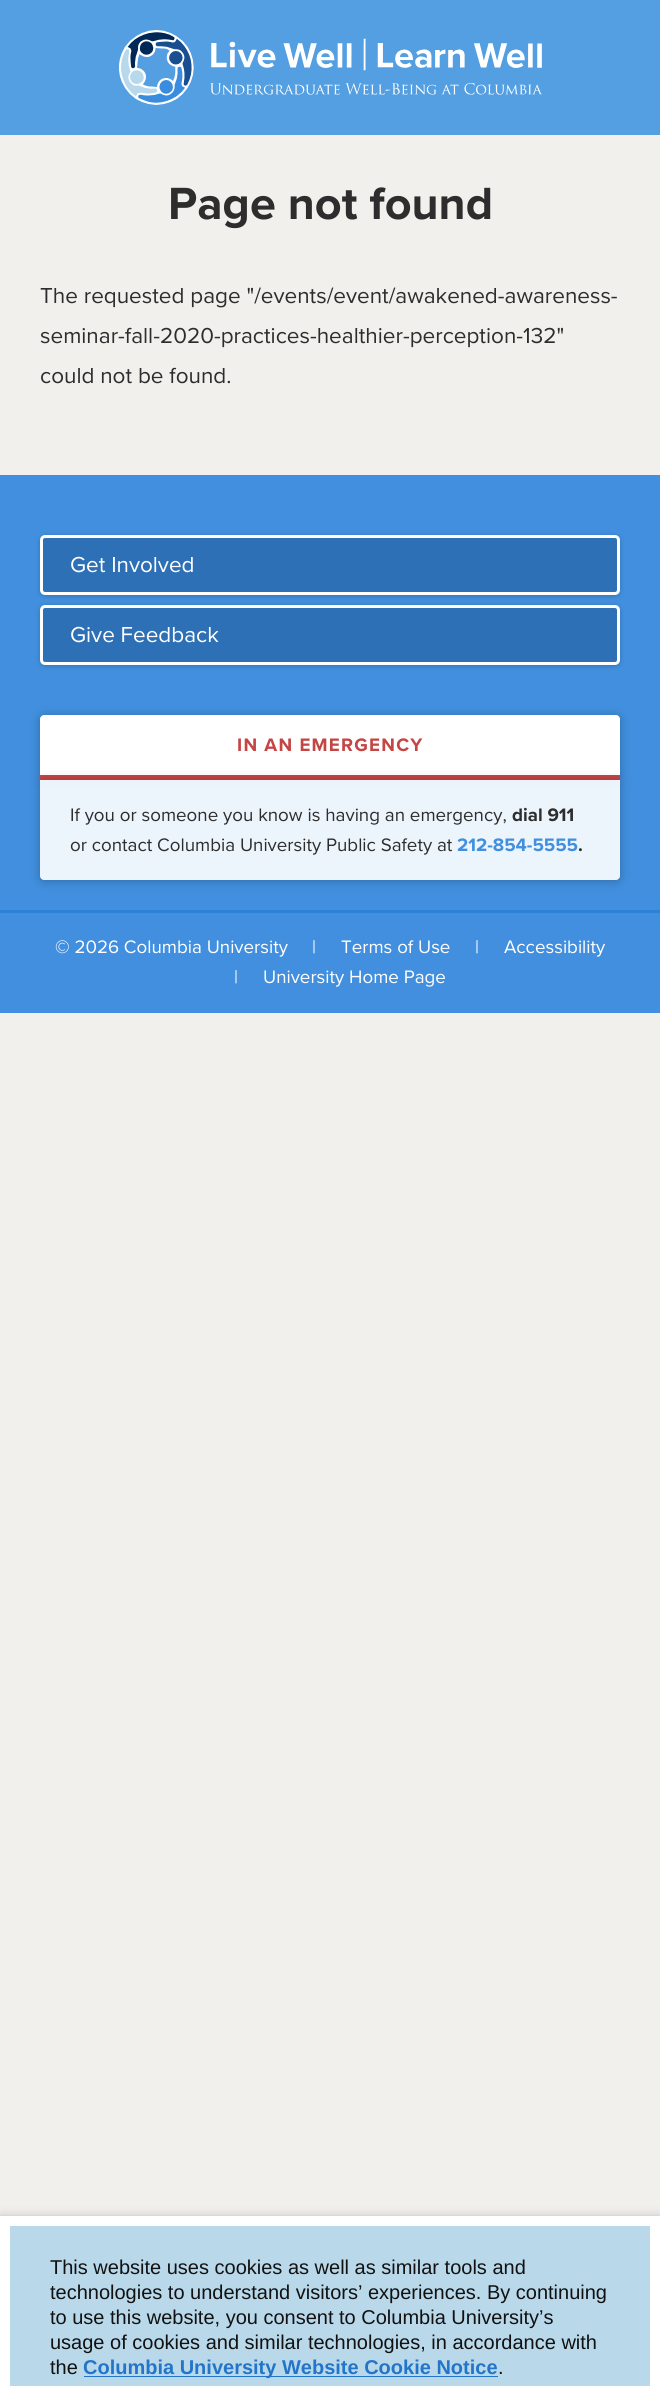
#include <cairo.h>
#include <math.h>
#include <stddef.h>

typedef struct { const char *family; double size; int italic, bold; unsigned color; } style_t;
static cairo_t *ctx;

static void ink(unsigned color) {
    cairo_set_source_rgb(ctx, (color >> 16) / 255.0, (color >> 8 & 255) / 255.0, (color & 255) / 255.0);
}

static void write(double x, double y, const char *s, const style_t *st) {
    cairo_select_font_face(ctx, st->family, st->italic ? CAIRO_FONT_SLANT_ITALIC : CAIRO_FONT_SLANT_NORMAL,
        st->bold ? CAIRO_FONT_WEIGHT_BOLD : CAIRO_FONT_WEIGHT_NORMAL);
    cairo_set_font_size(ctx, st->size);
    ink(st->color);
    cairo_move_to(ctx, x, y);
    cairo_show_text(ctx, s);
}

static void write_spaced(double x, double y, const char *s, double letter, double word) {
    cairo_move_to(ctx, x, y);
    while (*s) {
        char ch[5] = {0};
        int n = 0;
        do ch[n++] = *s++; while ((*s & 0xC0) == 0x80);
        cairo_show_text(ctx, ch);
        cairo_rel_move_to(ctx, letter + word * (*ch == ' '), 0);
    }
}

static void block(double x, double y, double w, double h, unsigned color) {
    ink(color);
    cairo_rectangle(ctx, x, y, w, h);
    cairo_fill(ctx);
}

static void round_path(double x, double y, double w, double h, double r) {
    cairo_new_sub_path(ctx);
    cairo_arc(ctx, x + w - r, y + h - r, r, 0, M_PI / 2);
    cairo_arc(ctx, x + r, y + h - r, r, M_PI / 2, M_PI);
    cairo_arc(ctx, x + r, y + r, r, M_PI, 1.5 * M_PI);
    cairo_arc(ctx, x + w - r, y + r, r, 1.5 * M_PI, 2 * M_PI);
    cairo_close_path(ctx);
}

static void blur_box(double x, double y, double w, double h, double r, double blur, double alpha) {
    cairo_push_group_with_content(ctx, CAIRO_CONTENT_ALPHA);
    cairo_set_operator(ctx, CAIRO_OPERATOR_SOURCE);
    for (int i = 15; i >= -15 && fmin(w, h) + blur * i / 3 > 0; i -= 2) {
        double e = blur * i / 6;
        cairo_set_source_rgba(ctx, 0, 0, 0, alpha * erfc((i - 1) / 8.5) / 2);
        round_path(x - e, y - e, w + 2 * e, h + 2 * e, fmax(0, fmin(r + e + blur * .6, fmin(w, h) / 2 + e)));
        cairo_fill(ctx);
    }
    cairo_pattern_t *soft = cairo_pop_group(ctx);
    cairo_mask(ctx, soft);
    cairo_pattern_destroy(soft);
}

static void paste(const char *path, double x, double y, double w, double h) {
    cairo_surface_t *image = cairo_image_surface_create_from_png(path);
    cairo_save(ctx);
    cairo_set_source_surface(ctx, image, x, y);
    cairo_rectangle(ctx, x, y, w, h);
    cairo_fill(ctx);
    cairo_restore(ctx);
    cairo_surface_destroy(image);
}

static const style_t s1 = {"Proxima Nova", 46.75, 0, 1, 0x2d2d2d};
static const style_t s2 = {"Proxima Nova", 22.5, 0, 0, 0x2d2d2d};
static const style_t s3 = {"Proxima Nova", 22.5, 0, 0, 0xffffff};
static const style_t s4 = {"Proxima Nova", 18.75, 0, 0, 0x2d2d2d};
static const style_t s5 = {"Proxima Nova", 18.75, 0, 1, 0x2d2d2d};
static const style_t s6 = {"Proxima Nova", 18.75, 0, 1, 0x418fde};
static const style_t s7 = {"Proxima Nova", 18.75, 0, 0, 0xffffff};
static const style_t s8 = {"Liberation Sans", 20, 0, 0, 0x111111};
static const style_t s9 = {"Liberation Sans", 20, 0, 1, 0x2375c9};

int main(void) {
    cairo_surface_t *surface = cairo_image_surface_create(CAIRO_FORMAT_RGB24, 660, 2386);
    ctx = cairo_create(surface);
    cairo_font_options_t *options = cairo_font_options_create();
    cairo_font_options_set_hint_metrics(options, CAIRO_HINT_METRICS_OFF);
    cairo_font_options_set_hint_style(options, CAIRO_HINT_STYLE_NONE);
    cairo_set_font_options(ctx, options);
    cairo_set_miter_limit(ctx, 4);
    ink(0xf2f0ed);
    cairo_paint(ctx);
    block(0, 0, 660, 135, 0x549fe2);
    paste("pic1.png", 119, 30, 424, 75);
    write(168, 219, "Page not found", &s1);
    write(40, 303, "The requested page \"/events/event/awakened-awareness-", &s2);
    write(40, 343, "seminar-fall-2020-practices-healthier-perception-132\"", &s2);
    write(40, 383, "could not be found.", &s2);
    block(0, 475, 660, 538, 0x418fde);
    cairo_save(ctx);
    cairo_set_fill_rule(ctx, CAIRO_FILL_RULE_EVEN_ODD);
    cairo_new_path(ctx);
    cairo_move_to(ctx, 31, 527);
    cairo_line_to(ctx, 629, 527);
    cairo_line_to(ctx, 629, 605);
    cairo_line_to(ctx, 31, 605);
    cairo_close_path(ctx);
    cairo_move_to(ctx, 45, 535);
    cairo_line_to(ctx, 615, 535);
    cairo_curve_to(ctx, 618, 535, 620, 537, 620, 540);
    cairo_line_to(ctx, 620, 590);
    cairo_curve_to(ctx, 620, 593, 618, 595, 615, 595);
    cairo_line_to(ctx, 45, 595);
    cairo_curve_to(ctx, 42, 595, 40, 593, 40, 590);
    cairo_line_to(ctx, 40, 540);
    cairo_curve_to(ctx, 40, 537, 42, 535, 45, 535);
    cairo_close_path(ctx);
    cairo_clip(ctx);
    ink(0x000000);
    blur_box(40, 536, 580, 60, 5, 2.5, 0.2);
    cairo_restore(ctx);
    cairo_set_source_rgba(ctx, 0, 0.157, 0.333, 0.3);
    round_path(41.5, 536.5, 577, 57, 3.5);
    cairo_fill_preserve(ctx);
    ink(0xffffff);
    cairo_set_line_width(ctx, 3);
    cairo_stroke(ctx);
    write(70, 572, "Get Involved", &s3);
    cairo_save(ctx);
    cairo_set_fill_rule(ctx, CAIRO_FILL_RULE_EVEN_ODD);
    cairo_new_path(ctx);
    cairo_move_to(ctx, 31, 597);
    cairo_line_to(ctx, 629, 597);
    cairo_line_to(ctx, 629, 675);
    cairo_line_to(ctx, 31, 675);
    cairo_close_path(ctx);
    cairo_move_to(ctx, 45, 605);
    cairo_line_to(ctx, 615, 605);
    cairo_curve_to(ctx, 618, 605, 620, 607, 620, 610);
    cairo_line_to(ctx, 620, 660);
    cairo_curve_to(ctx, 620, 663, 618, 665, 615, 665);
    cairo_line_to(ctx, 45, 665);
    cairo_curve_to(ctx, 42, 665, 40, 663, 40, 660);
    cairo_line_to(ctx, 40, 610);
    cairo_curve_to(ctx, 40, 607, 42, 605, 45, 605);
    cairo_close_path(ctx);
    cairo_clip(ctx);
    ink(0x000000);
    blur_box(40, 606, 580, 60, 5, 2.5, 0.2);
    cairo_restore(ctx);
    cairo_set_source_rgba(ctx, 0, 0.157, 0.333, 0.3);
    round_path(41.5, 606.5, 577, 57, 3.5);
    cairo_fill_preserve(ctx);
    ink(0xffffff);
    cairo_stroke(ctx);
    write(70, 642, "Give Feedback", &s3);
    ink(0x000000);
    blur_box(40, 716, 580, 65, 4, 5, 0.25);
    ink(0xffffff);
    cairo_new_path(ctx);
    cairo_move_to(ctx, 44, 715);
    cairo_line_to(ctx, 616, 715);
    cairo_curve_to(ctx, 618, 715, 620, 717, 620, 719);
    cairo_line_to(ctx, 620, 780);
    cairo_line_to(ctx, 40, 780);
    cairo_line_to(ctx, 40, 719);
    cairo_curve_to(ctx, 40, 717, 42, 715, 44, 715);
    cairo_close_path(ctx);
    cairo_fill(ctx);
    block(40, 775, 580, 5, 0xc54444);
    cairo_select_font_face(ctx, "Proxima Nova", CAIRO_FONT_SLANT_NORMAL, CAIRO_FONT_WEIGHT_BOLD);
    cairo_set_font_size(ctx, 18.75);
    write_spaced(237, 751, "IN AN EMERGENCY", 1.25, 0);
    cairo_save(ctx);
    cairo_set_fill_rule(ctx, CAIRO_FILL_RULE_EVEN_ODD);
    cairo_new_path(ctx);
    cairo_move_to(ctx, 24, 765);
    cairo_line_to(ctx, 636, 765);
    cairo_line_to(ctx, 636, 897);
    cairo_line_to(ctx, 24, 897);
    cairo_close_path(ctx);
    cairo_move_to(ctx, 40, 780);
    cairo_line_to(ctx, 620, 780);
    cairo_line_to(ctx, 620, 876);
    cairo_curve_to(ctx, 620, 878, 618, 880, 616, 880);
    cairo_line_to(ctx, 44, 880);
    cairo_curve_to(ctx, 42, 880, 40, 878, 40, 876);
    cairo_close_path(ctx);
    cairo_clip(ctx);
    ink(0x000000);
    blur_box(40, 781, 580, 100, 4, 5, 0.25);
    cairo_restore(ctx);
    cairo_set_source_rgba(ctx, 1, 1, 1, 0.9);
    cairo_new_path(ctx);
    cairo_move_to(ctx, 40, 780);
    cairo_line_to(ctx, 620, 780);
    cairo_line_to(ctx, 620, 876);
    cairo_curve_to(ctx, 620, 878, 618, 880, 616, 880);
    cairo_line_to(ctx, 44, 880);
    cairo_curve_to(ctx, 42, 880, 40, 878, 40, 876);
    cairo_close_path(ctx);
    cairo_fill(ctx);
    write(70, 821, "If you or someone you know is having an emergency,", &s4);
    write(512, 821, "dial 911", &s5);
    write(70, 851, "or contact Columbia University Public Safety at", &s4);
    write(457, 851, "212-854-5555", &s6);
    write(578, 851, ".", &s5);
    block(0, 910, 660, 3, 0x2b82da);
    write(55, 953, "© 2026 Columbia University", &s7);
    write(312, 953, "|", &s7);
    write(341, 953, "Terms of Use", &s7);
    write(475, 953, "|", &s7);
    write(504, 953, "Accessibility", &s7);
    write(234, 983, "|", &s7);
    write(263, 983, "University Home Page", &s7);
    ink(0x000000);
    blur_box(0, 2216, 660, 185, 0, 5, 0.2);
    ink(0xb9d9eb);
    cairo_rectangle(ctx, 5, 2221, 650, 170);
    cairo_fill_preserve(ctx);
    ink(0xffffff);
    cairo_set_line_width(ctx, 10);
    cairo_stroke(ctx);
    write(50, 2274, "This website uses cookies as well as similar tools and", &s8);
    write(50, 2299, "technologies to understand visitors’ experiences. By continuing", &s8);
    write(50, 2324, "to use this website, you consent to Columbia University’s", &s8);
    write(50, 2349, "usage of cookies and similar technologies, in accordance with", &s8);
    write(50, 2374, "the", &s8);
    block(84, 2376, 414, 1, 0x2375c9);
    write(83, 2374, "Columbia University Website Cookie Notice", &s9);
    write(498, 2374, ".", &s8);
    cairo_surface_write_to_png(surface, "screenshot.png");
    cairo_font_options_destroy(options);
    cairo_destroy(ctx);
    cairo_surface_destroy(surface);
    return 0;
}
